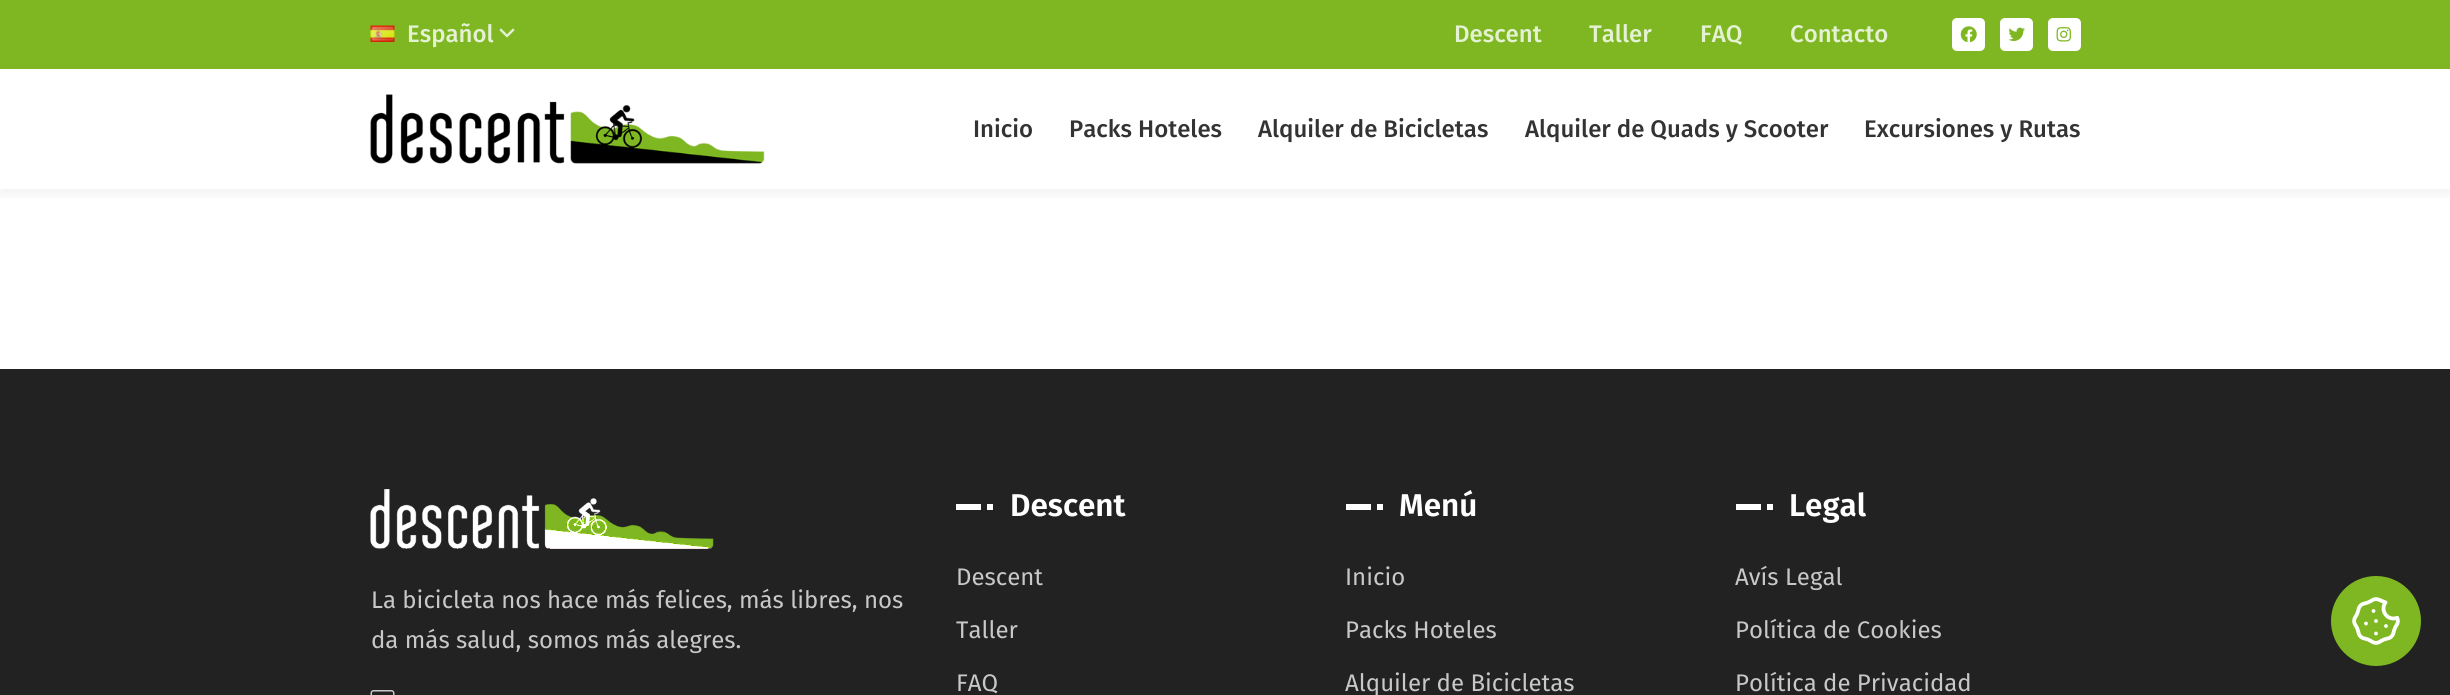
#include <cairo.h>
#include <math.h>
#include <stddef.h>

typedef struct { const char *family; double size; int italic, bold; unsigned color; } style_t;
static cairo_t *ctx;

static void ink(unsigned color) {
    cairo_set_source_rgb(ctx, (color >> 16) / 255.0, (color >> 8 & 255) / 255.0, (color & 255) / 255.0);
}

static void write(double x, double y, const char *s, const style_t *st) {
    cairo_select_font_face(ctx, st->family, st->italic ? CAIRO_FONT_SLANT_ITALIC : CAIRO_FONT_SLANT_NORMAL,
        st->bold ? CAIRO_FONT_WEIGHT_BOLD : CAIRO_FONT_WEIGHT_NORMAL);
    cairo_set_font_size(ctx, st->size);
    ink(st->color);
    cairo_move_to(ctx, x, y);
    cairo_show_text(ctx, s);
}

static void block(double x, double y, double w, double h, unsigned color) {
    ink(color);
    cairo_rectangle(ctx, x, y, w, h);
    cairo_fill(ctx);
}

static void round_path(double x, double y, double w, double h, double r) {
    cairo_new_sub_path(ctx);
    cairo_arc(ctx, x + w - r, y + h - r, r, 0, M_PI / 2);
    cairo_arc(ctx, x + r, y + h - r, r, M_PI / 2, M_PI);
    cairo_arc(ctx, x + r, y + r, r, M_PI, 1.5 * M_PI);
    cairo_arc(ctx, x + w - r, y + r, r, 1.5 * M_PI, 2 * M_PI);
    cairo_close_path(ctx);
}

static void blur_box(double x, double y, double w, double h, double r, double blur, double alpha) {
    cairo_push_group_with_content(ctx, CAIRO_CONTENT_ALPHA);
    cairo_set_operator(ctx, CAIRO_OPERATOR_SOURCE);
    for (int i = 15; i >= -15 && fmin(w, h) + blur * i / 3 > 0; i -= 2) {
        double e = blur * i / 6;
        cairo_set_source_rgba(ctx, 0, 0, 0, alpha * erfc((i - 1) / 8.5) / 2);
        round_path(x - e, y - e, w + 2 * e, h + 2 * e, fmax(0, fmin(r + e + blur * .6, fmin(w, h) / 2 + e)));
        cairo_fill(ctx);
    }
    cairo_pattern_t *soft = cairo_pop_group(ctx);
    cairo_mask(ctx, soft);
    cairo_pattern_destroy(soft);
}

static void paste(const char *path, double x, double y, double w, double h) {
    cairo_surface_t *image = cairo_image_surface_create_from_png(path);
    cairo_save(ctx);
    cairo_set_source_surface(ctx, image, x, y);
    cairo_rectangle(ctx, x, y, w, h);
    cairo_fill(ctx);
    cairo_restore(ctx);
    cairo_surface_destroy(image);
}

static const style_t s1 = {"Fira Sans Medium", 24, 0, 0, 0xe5f1d3};
static const style_t s2 = {"Fira Sans Medium", 24, 0, 0, 0x333333};
static const style_t s3 = {"Fira Sans", 24, 0, 0, 0xc8c8c8};
static const style_t s4 = {"Fira Sans SemiBold", 31.5, 0, 0, 0xffffff};

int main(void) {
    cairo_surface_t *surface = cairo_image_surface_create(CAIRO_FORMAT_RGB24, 2450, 695);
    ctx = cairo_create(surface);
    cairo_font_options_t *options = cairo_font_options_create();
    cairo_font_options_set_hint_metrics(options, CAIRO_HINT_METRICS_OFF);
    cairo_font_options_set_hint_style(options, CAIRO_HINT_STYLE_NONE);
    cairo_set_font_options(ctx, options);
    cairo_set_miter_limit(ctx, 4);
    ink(0xffffff);
    cairo_paint(ctx);
    cairo_save(ctx);
    cairo_rectangle(ctx, 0, 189, 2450, 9);
    cairo_clip(ctx);
    ink(0x000000);
    blur_box(0, 5, 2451, 189, 0, 9, 0.06);
    cairo_restore(ctx);
    block(0, 0, 2450, 69, 0x7eb721);
    paste("pic1.png", 370, 25, 25, 17);
    write(407, 42, "Español", &s1);
    paste("pic2.png", 499, 28, 16, 10);
    write(1454, 42, "Descent", &s1);
    write(1589, 42, "Taller", &s1);
    write(1700, 42, "FAQ", &s1);
    write(1790, 42, "Contacto", &s1);
    ink(0xffffff);
    round_path(1952, 18, 33, 33, 5);
    cairo_fill(ctx);
    paste("pic3.png", 1960, 26, 17, 17);
    round_path(2000, 18, 33, 33, 5);
    cairo_fill(ctx);
    paste("pic4.png", 2008, 27, 17, 14);
    round_path(2048, 18, 33, 33, 5);
    cairo_fill(ctx);
    paste("pic5.png", 2056, 27, 15, 15);
    paste("pic6.png", 370, 94, 395, 70);
    write(973, 137, "Inicio", &s2);
    write(1069, 137, "Packs Hoteles", &s2);
    write(1258, 137, "Alquiler de Bicicletas", &s2);
    write(1525, 137, "Alquiler de Quads y Scooter", &s2);
    write(1864, 137, "Excursiones y Rutas", &s2);
    block(0, 369, 2450, 326, 0x222222);
    paste("pic7.png", 370, 489, 344, 60);
    write(371, 608, "La bicicleta nos hace más felices, más libres, nos", &s3);
    write(371, 648, "da más salud, somos más alegres.", &s3);
    paste("pic8.png", 370, 690, 25, 5);
    block(956, 504, 25, 6, 0xffffff);
    block(987, 504, 6, 6, 0xffffff);
    write(1010, 516, "Descent", &s4);
    write(956, 585, "Descent", &s3);
    write(956, 638, "Taller", &s3);
    write(956, 691, "FAQ", &s3);
    block(1346, 504, 25, 6, 0xffffff);
    block(1377, 504, 6, 6, 0xffffff);
    write(1399, 516, "Menú", &s4);
    write(1345, 585, "Inicio", &s3);
    write(1345, 638, "Packs Hoteles", &s3);
    write(1345, 691, "Alquiler de Bicicletas", &s3);
    block(1736, 504, 25, 6, 0xffffff);
    block(1767, 504, 6, 6, 0xffffff);
    write(1789, 516, "Legal", &s4);
    write(1735, 585, "Avís Legal", &s3);
    write(1735, 638, "Política de Cookies", &s3);
    write(1735, 691, "Política de Privacidad", &s3);
    ink(0x7eb721);
    cairo_new_path(ctx);
    cairo_arc(ctx, 2376, 621, 45, 0, 2 * M_PI);
    cairo_fill(ctx);
    paste("pic9.png", 2352, 597, 48, 48);
    cairo_surface_write_to_png(surface, "screenshot.png");
    cairo_font_options_destroy(options);
    cairo_destroy(ctx);
    cairo_surface_destroy(surface);
    return 0;
}
